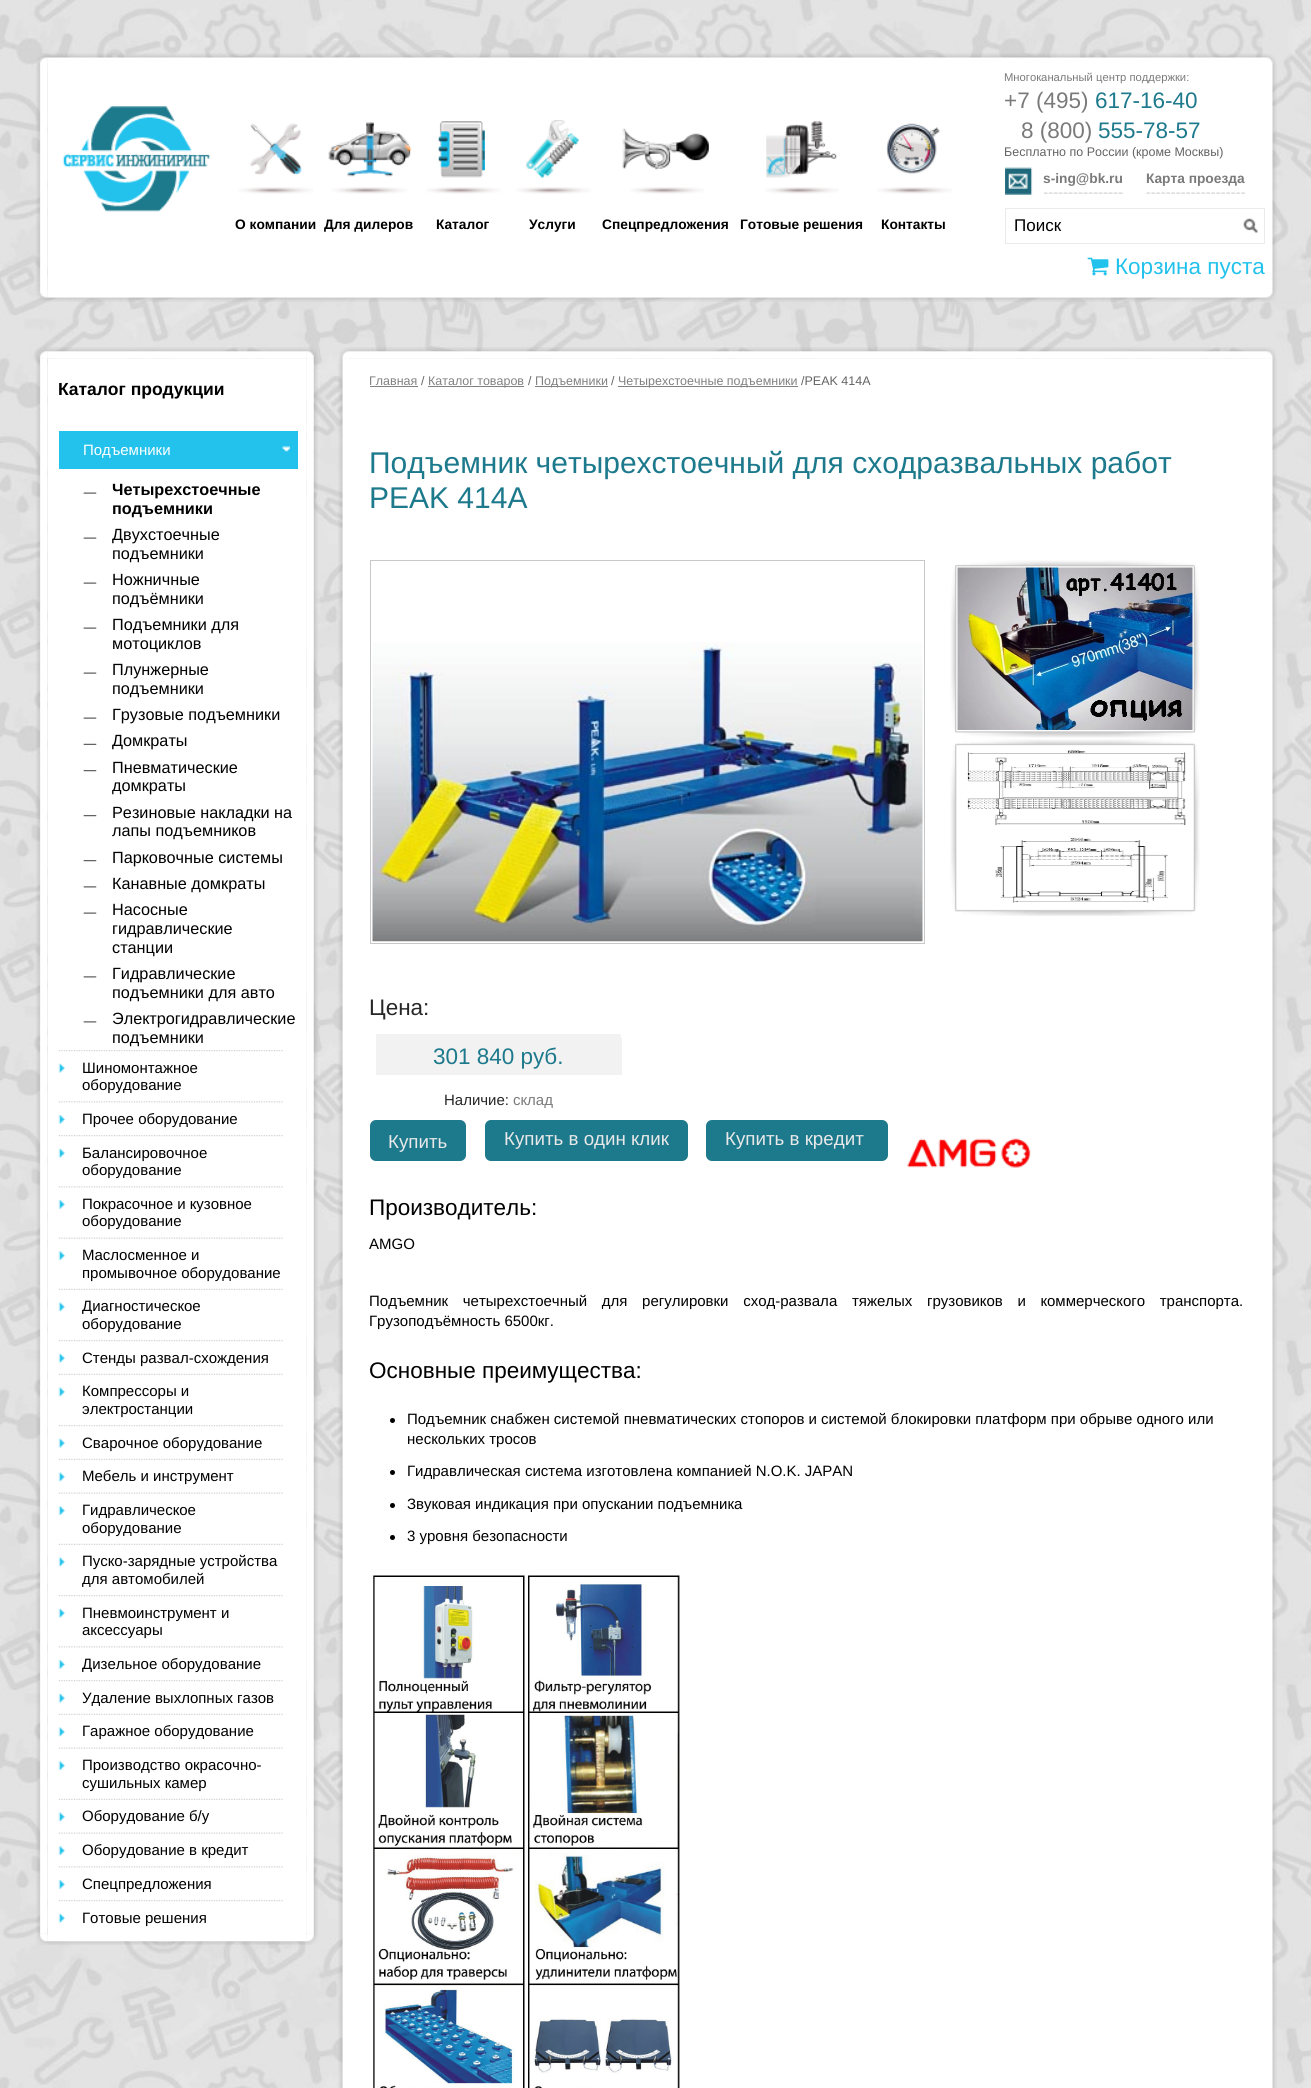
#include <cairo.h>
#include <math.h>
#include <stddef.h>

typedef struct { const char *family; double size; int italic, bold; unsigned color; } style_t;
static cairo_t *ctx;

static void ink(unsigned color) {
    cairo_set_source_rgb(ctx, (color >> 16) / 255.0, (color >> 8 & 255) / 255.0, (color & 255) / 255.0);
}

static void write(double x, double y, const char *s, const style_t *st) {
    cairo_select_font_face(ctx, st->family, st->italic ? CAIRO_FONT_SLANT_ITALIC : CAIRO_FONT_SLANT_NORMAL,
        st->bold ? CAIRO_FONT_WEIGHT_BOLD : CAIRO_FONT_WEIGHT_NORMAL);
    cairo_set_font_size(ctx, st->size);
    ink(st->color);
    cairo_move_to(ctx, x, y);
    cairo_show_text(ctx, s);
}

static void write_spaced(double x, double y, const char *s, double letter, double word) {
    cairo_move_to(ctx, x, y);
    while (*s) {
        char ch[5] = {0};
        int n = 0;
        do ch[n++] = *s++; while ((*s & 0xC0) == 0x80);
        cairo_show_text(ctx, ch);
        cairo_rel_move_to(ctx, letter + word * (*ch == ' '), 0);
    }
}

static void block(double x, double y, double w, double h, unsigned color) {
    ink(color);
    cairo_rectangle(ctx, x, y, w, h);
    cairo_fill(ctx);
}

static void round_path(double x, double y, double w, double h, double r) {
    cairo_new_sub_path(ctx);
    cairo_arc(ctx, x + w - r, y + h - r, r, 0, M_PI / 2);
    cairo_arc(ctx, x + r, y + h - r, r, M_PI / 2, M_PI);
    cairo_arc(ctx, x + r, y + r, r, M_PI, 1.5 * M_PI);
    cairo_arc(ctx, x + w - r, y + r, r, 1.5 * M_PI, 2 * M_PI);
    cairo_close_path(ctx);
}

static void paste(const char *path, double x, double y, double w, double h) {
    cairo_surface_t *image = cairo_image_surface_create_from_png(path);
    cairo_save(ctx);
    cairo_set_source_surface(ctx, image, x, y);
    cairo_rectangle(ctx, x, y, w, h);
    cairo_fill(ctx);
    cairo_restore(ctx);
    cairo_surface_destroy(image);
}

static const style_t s1 = {"Liberation Sans", 11.25, 0, 0, 0x7a7a7a};
static const style_t s2 = {"Liberation Sans", 22.5, 0, 0, 0x7a7a7a};
static const style_t s3 = {"Liberation Sans", 22.5, 0, 0, 0x1d798c};
static const style_t s4 = {"Liberation Sans", 12.5, 0, 0, 0x636363};
static const style_t s5 = {"Liberation Sans", 13.75, 0, 1, 0x7a7a7a};
static const style_t s6 = {"Liberation Sans", 17, 0, 0, 0x000000};
static const style_t s7 = {"Liberation Sans", 22.5, 0, 0, 0x22c2ec};
static const style_t s8 = {"Liberation Sans", 13.75, 0, 1, 0x000000};
static const style_t s9 = {"Liberation Sans", 17.5, 0, 1, 0x000000};
static const style_t s10 = {"Liberation Sans", 15, 0, 0, 0xffffff};
static const style_t s11 = {"Liberation Sans", 16.25, 0, 1, 0x000000};
static const style_t s12 = {"Liberation Sans", 16.25, 0, 0, 0x000000};
static const style_t s13 = {"Liberation Sans", 15, 0, 0, 0x000000};
static const style_t s14 = {"Liberation Sans", 12.5, 0, 0, 0x818181};
static const style_t s15 = {"Liberation Sans", 30, 0, 0, 0x1d798c};
static const style_t s16 = {"Liberation Sans", 22.5, 0, 0, 0x272727};
static const style_t s17 = {"Liberation Sans", 15, 0, 0, 0x272727};
static const style_t s18 = {"Liberation Sans", 15, 0, 0, 0x7a7a7a};
static const style_t s19 = {"Liberation Sans", 18.75, 0, 0, 0xe9e9e9};
static const style_t s20 = {"Liberation Sans", 22.5, 0, 0, 0x000000};

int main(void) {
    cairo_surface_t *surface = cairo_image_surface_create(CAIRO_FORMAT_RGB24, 1311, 2088);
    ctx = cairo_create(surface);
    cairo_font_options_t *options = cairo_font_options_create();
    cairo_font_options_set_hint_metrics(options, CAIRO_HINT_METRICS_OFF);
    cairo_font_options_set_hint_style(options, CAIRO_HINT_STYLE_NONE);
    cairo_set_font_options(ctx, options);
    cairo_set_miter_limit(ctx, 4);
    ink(0xffffff);
    cairo_paint(ctx);
    paste("pic1.png", 0, 0, 1311, 2088);
    paste("pic3.png", 47, 53, 1218, 12);
    paste("pic2.png", 36, 54, 12, 11);
    paste("pic4.png", 1265, 54, 11, 11);
    paste("pic5.png", 36, 65, 12, 225);
    block(48, 65, 1217, 225, 0xffffff);
    paste("pic6.png", 63, 106, 147, 106);
    write(1004, 81, "Многоканальный центр поддержки:", &s1);
    write(1004, 108, "+7 (495)", &s2);
    write(1095, 108, "617-16-40", &s3);
    write(1021, 138, "8 (800)", &s2);
    write(1098, 138, "555-78-57", &s3);
    write(1004, 156, "Бесплатно по России (кроме Москвы)", &s4);
    paste("pic7.png", 1005, 167, 28, 28);
    paste("pic8.png", 1044, 192, 80, 2);
    write(1043, 183, "s-ing@bk.ru", &s5);
    paste("pic9.png", 1146, 192, 99, 2);
    write(1146, 183, "Карта проезда", &s5);
    cairo_rectangle(ctx, 1005.5, 208.5, 259, 35);
    ink(0xecebe9);
    cairo_set_line_width(ctx, 1);
    cairo_stroke(ctx);
    write(1014, 231, "Поиск", &s6);
    paste("pic10.png", 1243, 218, 15, 15);
    paste("pic11.png", 1087, 257, 22, 19);
    write(1115, 274, "Корзина пуста", &s7);
    paste("pic12.png", 250, 123, 52, 52);
    paste("pic13.png", 328, 122, 84, 55);
    paste("pic14.png", 438, 121, 47, 57);
    paste("pic15.png", 526, 120, 53, 58);
    paste("pic16.png", 622, 128, 88, 42);
    paste("pic17.png", 766, 121, 71, 57);
    paste("pic18.png", 886, 123, 54, 51);
    paste("pic19.png", 238, 187, 75, 7);
    paste("pic20.png", 332, 187, 75, 7);
    paste("pic21.png", 426, 187, 75, 7);
    paste("pic21.png", 516, 187, 75, 7);
    paste("pic22.png", 630, 187, 74, 7);
    paste("pic22.png", 765, 187, 74, 7);
    paste("pic20.png", 877, 187, 75, 7);
    write(235, 229, "О компании", &s8);
    write(324, 229, "Для дилеров", &s8);
    write(436, 229, "Каталог", &s8);
    write(529, 229, "Услуги", &s8);
    write(602, 229, "Спецпредложения", &s8);
    write(740, 229, "Готовые решения", &s8);
    write(881, 229, "Контакты", &s8);
    paste("pic23.png", 1265, 65, 12, 225);
    paste("pic25.png", 47, 290, 1218, 12);
    paste("pic24.png", 36, 290, 12, 11);
    paste("pic26.png", 1265, 290, 11, 11);
    paste("pic28.png", 47, 347, 260, 12);
    paste("pic30.png", 36, 358, 12, 1576);
    paste("pic27.png", 36, 347, 12, 12);
    paste("pic44.png", 306, 358, 12, 1576);
    paste("pic29.png", 306, 347, 12, 12);
    block(48, 359, 258, 1575, 0xffffff);
    write(58, 395, "Каталог продукции", &s9);
    block(59, 431, 239, 38, 0x22c2ec);
    write(83, 455, "Подъемники", &s10);
    paste("pic31.png", 282, 446, 8, 6);
    paste("pic32.png", 82, 492, 15, 2);
    write(112, 495, "Четырехстоечные", &s11);
    write(112, 514, "подъемники", &s11);
    paste("pic32.png", 82, 537, 15, 2);
    write(112, 540, "Двухстоечные", &s12);
    write(112, 559, "подъемники", &s12);
    paste("pic32.png", 82, 582, 15, 2);
    write(112, 585, "Ножничные", &s12);
    write(112, 604, "подъёмники", &s12);
    paste("pic32.png", 82, 627, 15, 2);
    write(112, 630, "Подъемники для", &s12);
    write(112, 649, "мотоциклов", &s12);
    paste("pic32.png", 82, 672, 15, 2);
    write(112, 675, "Плунжерные", &s12);
    write(112, 694, "подъемники", &s12);
    paste("pic32.png", 82, 717, 15, 2);
    write(112, 720, "Грузовые подъемники", &s12);
    paste("pic33.png", 82, 743, 15, 2);
    write(112, 746, "Домкраты", &s12);
    paste("pic34.png", 82, 770, 15, 2);
    write(112, 773, "Пневматические", &s12);
    write(112, 791, "домкраты", &s12);
    paste("pic34.png", 82, 815, 15, 2);
    write(112, 818, "Резиновые накладки на", &s12);
    write(112, 836, "лапы подъемников", &s12);
    paste("pic34.png", 82, 860, 15, 2);
    write(112, 863, "Парковочные системы", &s12);
    paste("pic35.png", 82, 886, 15, 2);
    write(112, 889, "Канавные домкраты", &s12);
    paste("pic32.png", 82, 912, 15, 2);
    write(112, 915, "Насосные", &s12);
    write(112, 934, "гидравлические", &s12);
    write(112, 953, "станции", &s12);
    paste("pic35.png", 82, 976, 15, 2);
    write(112, 979, "Гидравлические", &s12);
    write(112, 998, "подъемники для авто", &s12);
    paste("pic35.png", 82, 1021, 15, 2);
    write(112, 1024, "Электрогидравлические", &s12);
    write(112, 1043, "подъемники", &s12);
    paste("pic36.png", 58, 1050, 225, 2);
    paste("pic37.png", 58, 1063, 7, 10);
    write(82, 1073, "Шиномонтажное", &s13);
    write(82, 1090, "оборудование", &s13);
    paste("pic38.png", 58, 1101, 225, 2);
    paste("pic39.png", 58, 1115, 7, 9);
    write(82, 1124, "Прочее оборудование", &s13);
    paste("pic36.png", 58, 1135, 225, 2);
    paste("pic37.png", 58, 1148, 7, 10);
    write(82, 1158, "Балансировочное", &s13);
    write(82, 1175, "оборудование", &s13);
    paste("pic38.png", 58, 1186, 225, 2);
    paste("pic39.png", 58, 1200, 7, 9);
    write(82, 1209, "Покрасочное и кузовное", &s13);
    write(82, 1226, "оборудование", &s13);
    paste("pic40.png", 58, 1237, 225, 2);
    paste("pic41.png", 58, 1251, 7, 9);
    write(82, 1260, "Маслосменное и", &s13);
    write(82, 1278, "промывочное оборудование", &s13);
    paste("pic42.png", 58, 1288, 225, 2);
    paste("pic43.png", 58, 1302, 7, 10);
    write(82, 1311, "Диагностическое", &s13);
    write(82, 1329, "оборудование", &s13);
    paste("pic36.png", 58, 1340, 225, 2);
    paste("pic37.png", 58, 1353, 7, 10);
    write(82, 1363, "Стенды развал-схождения", &s13);
    paste("pic42.png", 58, 1373, 225, 2);
    paste("pic43.png", 58, 1387, 7, 10);
    write(82, 1396, "Компрессоры и", &s13);
    write(82, 1414, "электростанции", &s13);
    paste("pic36.png", 58, 1425, 225, 2);
    paste("pic37.png", 58, 1438, 7, 10);
    write(82, 1448, "Сварочное оборудование", &s13);
    paste("pic42.png", 58, 1458, 225, 2);
    paste("pic43.png", 58, 1472, 7, 10);
    write(82, 1481, "Мебель и инструмент", &s13);
    paste("pic40.png", 58, 1492, 225, 2);
    paste("pic41.png", 58, 1506, 7, 9);
    write(82, 1515, "Гидравлическое", &s13);
    write(82, 1533, "оборудование", &s13);
    paste("pic42.png", 58, 1543, 225, 2);
    paste("pic43.png", 58, 1557, 7, 10);
    write(82, 1566, "Пуско-зарядные устройства", &s13);
    write(82, 1584, "для автомобилей", &s13);
    paste("pic36.png", 58, 1595, 225, 2);
    paste("pic37.png", 58, 1608, 7, 10);
    write(82, 1618, "Пневмоинструмент и", &s13);
    write(82, 1635, "аксессуары", &s13);
    paste("pic38.png", 58, 1646, 225, 2);
    paste("pic39.png", 58, 1660, 7, 9);
    write(82, 1669, "Дизельное оборудование", &s13);
    paste("pic36.png", 58, 1680, 225, 2);
    paste("pic37.png", 58, 1693, 7, 10);
    write(82, 1703, "Удаление выхлопных газов", &s13);
    paste("pic42.png", 58, 1713, 225, 2);
    paste("pic43.png", 58, 1727, 7, 10);
    write(82, 1736, "Гаражное оборудование", &s13);
    paste("pic40.png", 58, 1747, 225, 2);
    paste("pic41.png", 58, 1761, 7, 9);
    write(82, 1770, "Производство окрасочно-", &s13);
    write(82, 1788, "сушильных камер", &s13);
    paste("pic42.png", 58, 1798, 225, 2);
    paste("pic43.png", 58, 1812, 7, 10);
    write(82, 1821, "Оборудование б/у", &s13);
    paste("pic40.png", 58, 1832, 225, 2);
    paste("pic41.png", 58, 1846, 7, 9);
    write(82, 1855, "Оборудование в кредит", &s13);
    paste("pic38.png", 58, 1866, 225, 2);
    paste("pic39.png", 58, 1880, 7, 9);
    write(82, 1889, "Спецпредложения", &s13);
    paste("pic36.png", 58, 1900, 225, 2);
    paste("pic37.png", 58, 1913, 7, 10);
    write(82, 1923, "Готовые решения", &s13);
    paste("pic46.png", 47, 1934, 260, 11);
    paste("pic45.png", 36, 1933, 12, 12);
    paste("pic47.png", 306, 1933, 12, 12);
    paste("pic51.png", 338, 358, 12, 1730);
    paste("pic48.png", 339, 347, 11, 12);
    paste("pic49.png", 350, 347, 915, 12);
    paste("pic59.png", 1265, 358, 12, 1730);
    paste("pic50.png", 1265, 347, 11, 12);
    block(350, 359, 915, 1729, 0xffffff);
    write(369, 385, "Главная", &s14);
    block(370, 386, 48, 1, 0x818181);
    write(421, 385, "/", &s4);
    block(428, 386, 96, 1, 0x818181);
    write(428, 385, "Каталог товаров", &s14);
    write(528, 385, "/", &s4);
    block(535, 386, 73, 1, 0x818181);
    write(535, 385, "Подъемники", &s14);
    write(611, 385, "/", &s4);
    block(618, 386, 180, 1, 0x818181);
    write(618, 385, "Четырехстоечные подъемники", &s14);
    write(801, 385, "/PEAK 414A", &s4);
    write(369, 473, "Подъемник четырехстоечный для сходразвальных работ", &s15);
    write(369, 508, "PEAK 414A", &s15);
    cairo_rectangle(ctx, 370.5, 560.5, 554, 383);
    ink(0xc8c8c8);
    cairo_stroke(ctx);
    paste("pic52.png", 372, 642, 551, 300);
    paste("pic53.png", 950, 560, 250, 178);
    paste("pic54.png", 957, 567, 236, 163);
    paste("pic55.png", 950, 739, 250, 177);
    paste("pic56.png", 967, 750, 219, 153);
    write(369, 1015, "Цена:", &s16);
    block(376, 1034, 4, 4, 0xf3f3f3);
    block(380, 1034, 238, 4, 0xf2f2f2);
    block(618, 1034, 3, 4, 0xf3f3f3);
    block(376, 1038, 246, 37, 0xf2f2f2);
    write(433, 1064, "301 840 руб.", &s3);
    write(444, 1105, "Наличие:", &s17);
    write(513, 1105, "склад", &s18);
    ink(0x1d798c);
    round_path(370, 1120, 96, 41, 6);
    cairo_fill(ctx);
    write(388, 1148, "Купить", &s19);
    ink(0x1d798c);
    round_path(485, 1120, 203, 41, 6);
    cairo_fill(ctx);
    write(504, 1145, "Купить в один клик", &s19);
    ink(0x1d798c);
    round_path(706, 1120, 182, 41, 6);
    cairo_fill(ctx);
    write(725, 1145, "Купить в кредит", &s19);
    paste("pic57.png", 907, 1138, 124, 30);
    write(369, 1215, "Производитель:", &s20);
    write(369, 1249, "AMGO", &s13);
    write_spaced(369, 1306, "Подъемник четырехстоечный для регулировки сход-развала тяжелых грузовиков и коммерческого транспорта.", 0, 10.5);
    write(369, 1326, "Грузоподъёмность 6500кг.", &s13);
    write(369, 1378, "Основные преимущества:", &s20);
    cairo_new_path(ctx);
    cairo_arc(ctx, 392.5, 1420.5, 2.5, 0, 2 * M_PI);
    cairo_fill(ctx);
    write(407, 1424, "Подъемник снабжен системой пневматических стопоров и системой блокировки платформ при обрыве одного или", &s13);
    write(407, 1444, "нескольких тросов", &s13);
    cairo_new_path(ctx);
    cairo_arc(ctx, 392.5, 1472.5, 2.5, 0, 2 * M_PI);
    cairo_fill(ctx);
    write(407, 1476, "Гидравлическая система изготовлена компанией N.O.K. JAPAN", &s13);
    cairo_new_path(ctx);
    cairo_arc(ctx, 392.5, 1505.5, 2.5, 0, 2 * M_PI);
    cairo_fill(ctx);
    write(407, 1509, "Звуковая индикация при опускании подъемника", &s13);
    cairo_new_path(ctx);
    cairo_arc(ctx, 392.5, 1537.5, 2.5, 0, 2 * M_PI);
    cairo_fill(ctx);
    write(407, 1541, "3 уровня безопасности", &s13);
    paste("pic58.png", 373, 1575, 307, 513);
    cairo_surface_write_to_png(surface, "screenshot.png");
    cairo_font_options_destroy(options);
    cairo_destroy(ctx);
    cairo_surface_destroy(surface);
    return 0;
}
